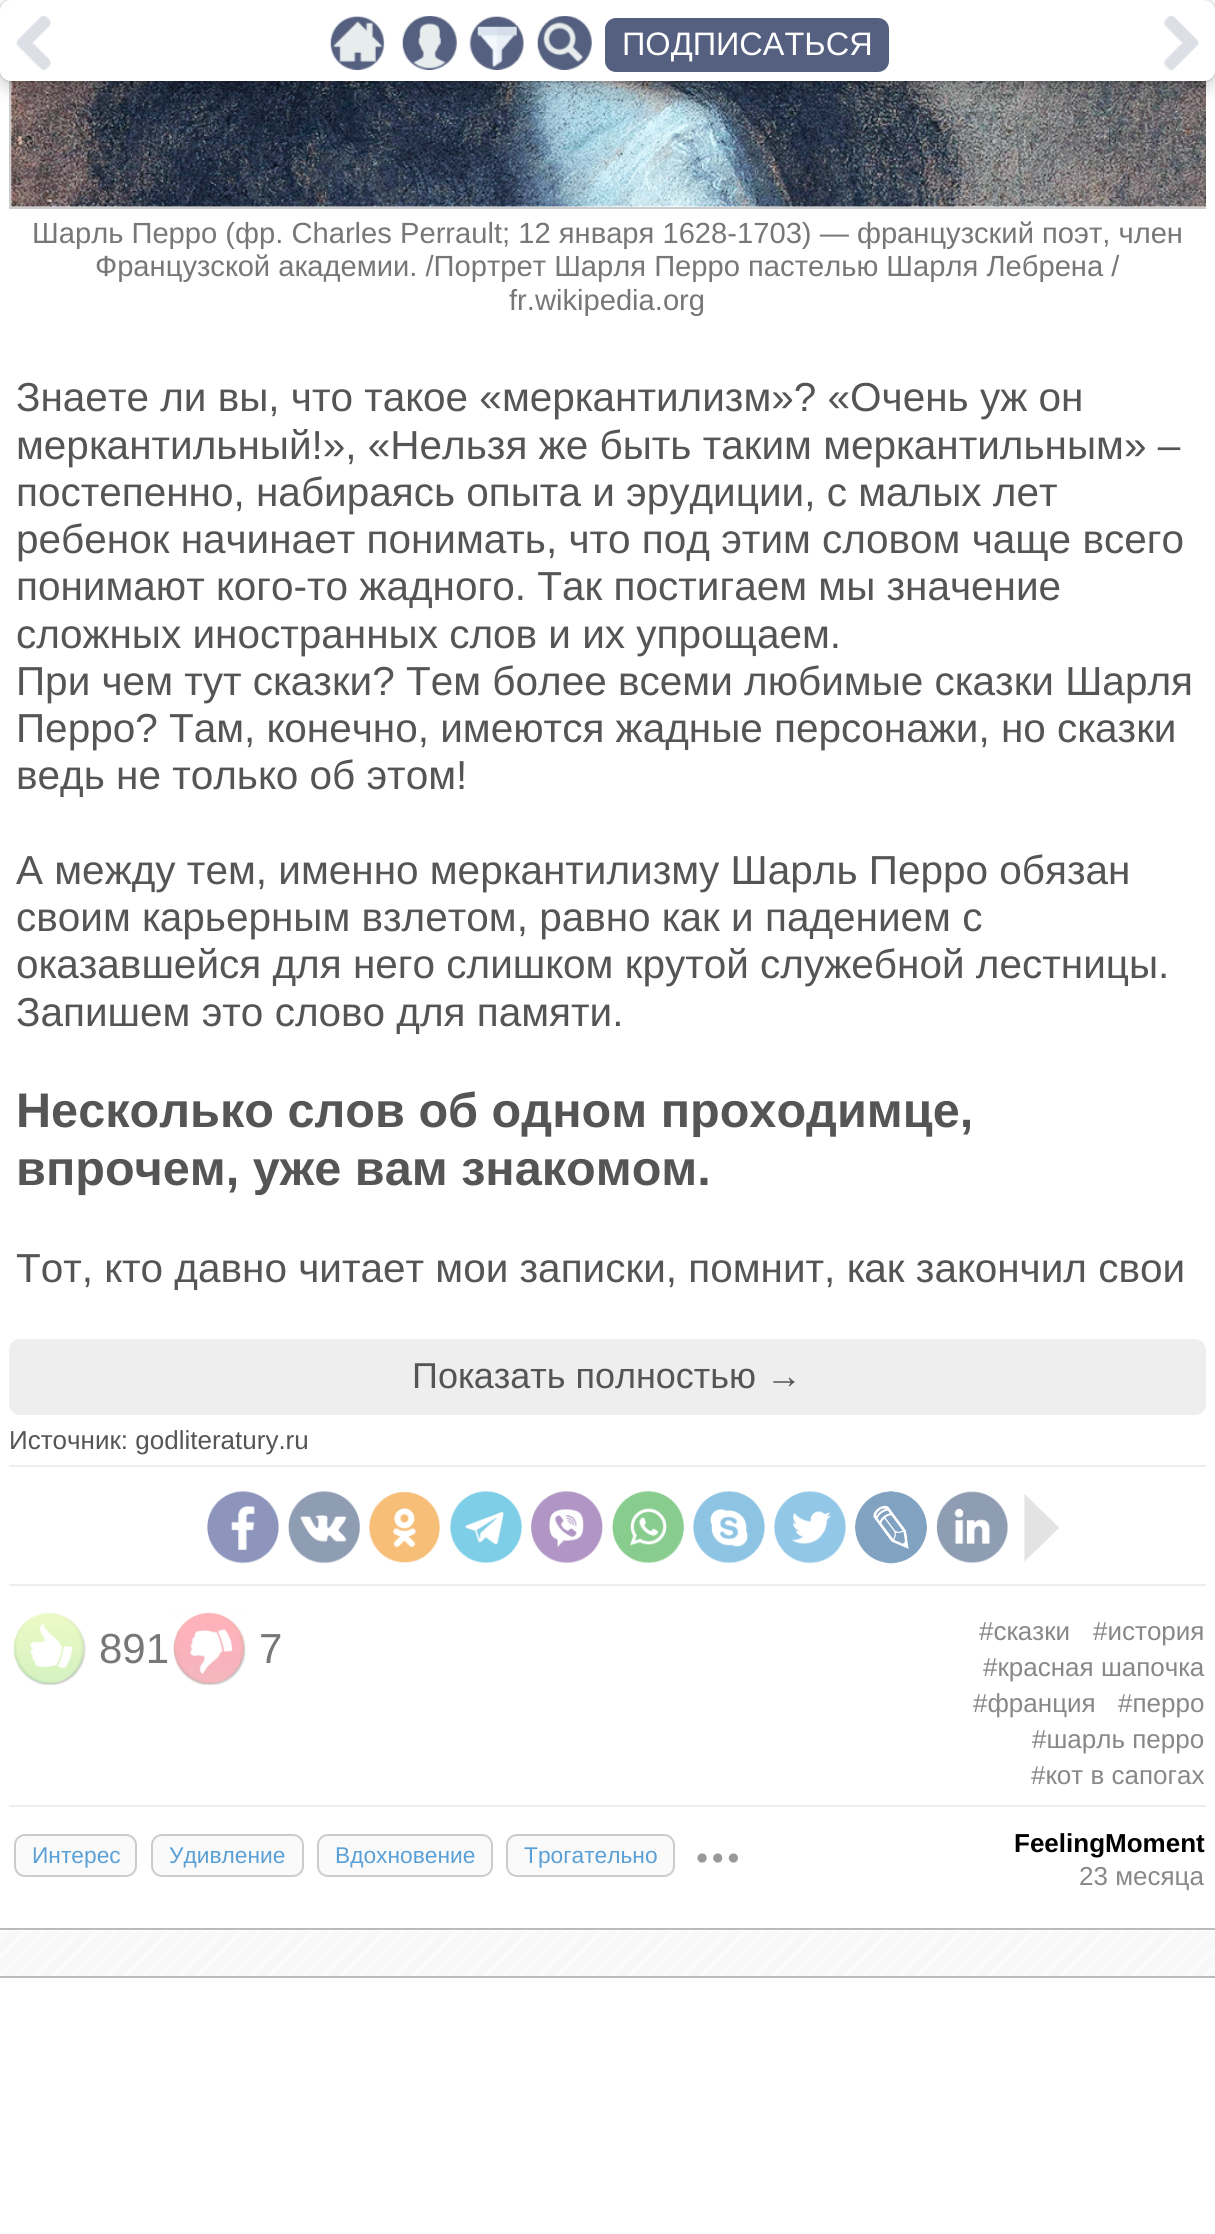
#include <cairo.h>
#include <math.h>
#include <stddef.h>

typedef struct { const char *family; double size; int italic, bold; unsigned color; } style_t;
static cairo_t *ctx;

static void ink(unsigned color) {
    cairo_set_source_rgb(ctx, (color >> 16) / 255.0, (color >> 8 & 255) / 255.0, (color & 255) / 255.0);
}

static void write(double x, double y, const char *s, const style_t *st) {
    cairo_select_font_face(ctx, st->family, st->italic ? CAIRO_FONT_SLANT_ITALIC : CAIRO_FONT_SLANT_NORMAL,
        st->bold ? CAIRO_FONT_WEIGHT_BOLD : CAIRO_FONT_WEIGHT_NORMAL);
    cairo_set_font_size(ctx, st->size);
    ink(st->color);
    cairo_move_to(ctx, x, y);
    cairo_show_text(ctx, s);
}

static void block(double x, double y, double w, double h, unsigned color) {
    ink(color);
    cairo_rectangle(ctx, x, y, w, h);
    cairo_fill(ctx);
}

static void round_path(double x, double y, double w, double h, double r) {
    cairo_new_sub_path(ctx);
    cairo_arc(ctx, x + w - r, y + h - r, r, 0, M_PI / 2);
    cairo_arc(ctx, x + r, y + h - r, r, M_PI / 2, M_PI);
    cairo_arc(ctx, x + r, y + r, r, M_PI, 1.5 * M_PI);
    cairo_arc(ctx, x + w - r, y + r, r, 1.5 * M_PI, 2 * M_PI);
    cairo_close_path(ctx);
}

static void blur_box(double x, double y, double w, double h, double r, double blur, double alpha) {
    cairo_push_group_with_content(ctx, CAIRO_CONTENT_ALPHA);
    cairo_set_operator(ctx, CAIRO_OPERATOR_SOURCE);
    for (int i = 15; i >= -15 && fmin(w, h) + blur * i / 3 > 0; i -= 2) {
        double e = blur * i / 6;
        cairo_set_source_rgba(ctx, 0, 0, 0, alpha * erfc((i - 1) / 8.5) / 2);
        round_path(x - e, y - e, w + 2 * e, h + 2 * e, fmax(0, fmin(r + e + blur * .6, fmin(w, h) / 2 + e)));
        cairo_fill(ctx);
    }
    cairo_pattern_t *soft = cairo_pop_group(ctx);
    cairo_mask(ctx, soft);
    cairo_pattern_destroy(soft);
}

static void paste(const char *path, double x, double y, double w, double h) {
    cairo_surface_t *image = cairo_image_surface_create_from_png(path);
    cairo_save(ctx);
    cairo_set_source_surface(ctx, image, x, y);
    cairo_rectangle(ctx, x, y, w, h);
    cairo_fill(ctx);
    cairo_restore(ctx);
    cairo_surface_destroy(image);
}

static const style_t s1 = {"Liberation Sans", 32.5, 0, 0, 0xffffff};
static const style_t s2 = {"Liberation Sans", 29.15, 0, 0, 0x777777};
static const style_t s3 = {"Liberation Sans", 40.5, 0, 0, 0x555555};
static const style_t s4 = {"Liberation Sans", 48.6, 0, 1, 0x555555};
static const style_t s5 = {"Liberation Sans", 36, 0, 0, 0x555555};
static const style_t s6 = {"Liberation Sans", 26, 0, 0, 0x555555};
static const style_t s7 = {"Liberation Sans", 42, 0, 0, 0x777777};
static const style_t s8 = {"Liberation Sans", 26, 0, 0, 0x888888};
static const style_t s9 = {"Liberation Sans", 22.75, 0, 0, 0x5aa0d6};
static const style_t s10 = {"Liberation Sans", 26, 0, 1, 0x000000};

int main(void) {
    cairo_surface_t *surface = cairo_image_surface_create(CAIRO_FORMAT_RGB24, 1215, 2234);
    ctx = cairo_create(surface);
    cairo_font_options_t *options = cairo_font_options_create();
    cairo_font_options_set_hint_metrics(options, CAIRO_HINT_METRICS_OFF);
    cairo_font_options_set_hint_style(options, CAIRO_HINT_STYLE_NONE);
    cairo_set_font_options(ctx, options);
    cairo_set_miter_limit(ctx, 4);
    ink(0xffffff);
    cairo_paint(ctx);
    paste("pic1.png", 0, 1931, 1215, 45);
    cairo_save(ctx);
    cairo_rectangle(ctx, 9, 0, 1197, 1305);
    cairo_clip(ctx);
    cairo_rectangle(ctx, 10, -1, 1200, 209);
    ink(0xcccccc);
    cairo_stroke(ctx);
    cairo_restore(ctx);
    paste("pic8.png", 11, 0, 1195, 207);
    round_path(-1, -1, 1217, 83, 13);
    cairo_set_source_rgba(ctx, 0, 0, 0, 0.08);
    cairo_stroke(ctx);
    ink(0x000000);
    blur_box(0, 7, 1215, 81, 11, 9, 0.2);
    ink(0xffffff);
    round_path(0, 0, 1215, 81, 11);
    cairo_fill(ctx);
    paste("pic2.png", 16, 16, 35, 54);
    paste("pic3.png", 330, 16, 55, 54);
    paste("pic4.png", 402, 16, 55, 54);
    paste("pic5.png", 469, 16, 55, 54);
    paste("pic6.png", 537, 16, 55, 54);
    ink(0x556080);
    round_path(605, 18, 284, 54, 11);
    cairo_fill(ctx);
    write(622, 55, "ПОДПИСАТЬСЯ", &s1);
    paste("pic7.png", 1164, 16, 35, 54);
    block(0, 1928, 1215, 2, 0xbbbbbb);
    write(32, 243, "Шарль Перро (фр. Charles Perrault; 12 января 1628-1703) — французский поэт, член", &s2);
    write(95, 276, "Французской академии. /Портрет Шарля Перро пастелью Шарля Лебрена /", &s2);
    write(509, 310, "fr.wikipedia.org", &s2);
    write(16, 411, "Знаете ли вы, что такое «меркантилизм»? «Очень уж он", &s3);
    write(16, 459, "меркантильный!», «Нельзя же быть таким меркантильным» –", &s3);
    write(16, 506, "постепенно, набираясь опыта и эрудиции, с малых лет", &s3);
    write(16, 553, "ребенок начинает понимать, что под этим словом чаще всего", &s3);
    write(16, 600, "понимают кого-то жадного. Так постигаем мы значение", &s3);
    write(16, 648, "сложных иностранных слов и их упрощаем.", &s3);
    write(16, 695, "При чем тут сказки? Тем более всеми любимые сказки Шарля", &s3);
    write(16, 742, "Перро? Там, конечно, имеются жадные персонажи, но сказки", &s3);
    write(16, 789, "ведь не только об этом!", &s3);
    write(16, 884, "А между тем, именно меркантилизму Шарль Перро обязан", &s3);
    write(16, 931, "своим карьерным взлетом, равно как и падением с", &s3);
    write(16, 978, "оказавшейся для него слишком крутой служебной лестницы.", &s3);
    write(16, 1026, "Запишем это слово для памяти.", &s3);
    write(16, 1127, "Несколько слов об одном проходимце,", &s4);
    write(16, 1185, "впрочем, уже вам знакомом.", &s4);
    write(16, 1282, "Тот, кто давно читает мои записки, помнит, как закончил свои", &s3);
    ink(0xeeeeee);
    round_path(9, 1339, 1197, 76, 11);
    cairo_fill(ctx);
    write(412, 1388, "Показать полностью →", &s5);
    write(9, 1449, "Источник: godliteratury.ru", &s6);
    block(9, 1465, 1197, 2, 0xeeeeee);
    paste("pic9.png", 207, 1491, 72, 73);
    paste("pic10.png", 288, 1491, 72, 73);
    paste("pic11.png", 369, 1491, 71, 72);
    paste("pic12.png", 450, 1491, 72, 73);
    paste("pic13.png", 531, 1491, 72, 73);
    paste("pic14.png", 612, 1491, 72, 73);
    paste("pic15.png", 693, 1491, 72, 73);
    paste("pic16.png", 774, 1491, 72, 73);
    paste("pic17.png", 855, 1491, 72, 73);
    paste("pic18.png", 936, 1491, 72, 73);
    paste("pic19.png", 1024, 1494, 35, 68);
    block(9, 1584, 1197, 2, 0xeeeeee);
    paste("pic20.png", 13, 1612, 73, 73);
    write(99, 1663, "891", &s7);
    paste("pic21.png", 173, 1612, 73, 73);
    write(259, 1663, "7", &s7);
    write(979, 1640, "#сказки", &s8);
    write(1093, 1640, "#история", &s8);
    write(983, 1676, "#красная шапочка", &s8);
    write(973, 1712, "#франция", &s8);
    write(1118, 1712, "#перро", &s8);
    write(1032, 1748, "#шарль перро", &s8);
    write(1031, 1784, "#кот в сапогах", &s8);
    block(9, 1805, 1197, 2, 0xeeeeee);
    ink(0xfafafa);
    round_path(15, 1835, 121, 41, 10);
    cairo_fill_preserve(ctx);
    ink(0xcccccc);
    cairo_stroke(ctx);
    write(32, 1863, "Интерес", &s9);
    ink(0xfafafa);
    round_path(152, 1835, 151, 41, 10);
    cairo_fill_preserve(ctx);
    ink(0xcccccc);
    cairo_stroke(ctx);
    write(169, 1863, "Удивление", &s9);
    ink(0xfafafa);
    round_path(318, 1835, 174, 41, 10);
    cairo_fill_preserve(ctx);
    ink(0xcccccc);
    cairo_stroke(ctx);
    write(335, 1863, "Вдохновение", &s9);
    ink(0xfafafa);
    round_path(507, 1835, 167, 41, 10);
    cairo_fill_preserve(ctx);
    ink(0xcccccc);
    cairo_stroke(ctx);
    write(524, 1863, "Трогательно", &s9);
    paste("pic22.png", 697, 1853, 41, 10);
    write(1014, 1852, "FeelingMoment", &s10);
    write(1079, 1885, "23 месяца", &s8);
    block(0, 1976, 1215, 2, 0xbbbbbb);
    cairo_surface_write_to_png(surface, "screenshot.png");
    cairo_font_options_destroy(options);
    cairo_destroy(ctx);
    cairo_surface_destroy(surface);
    return 0;
}
